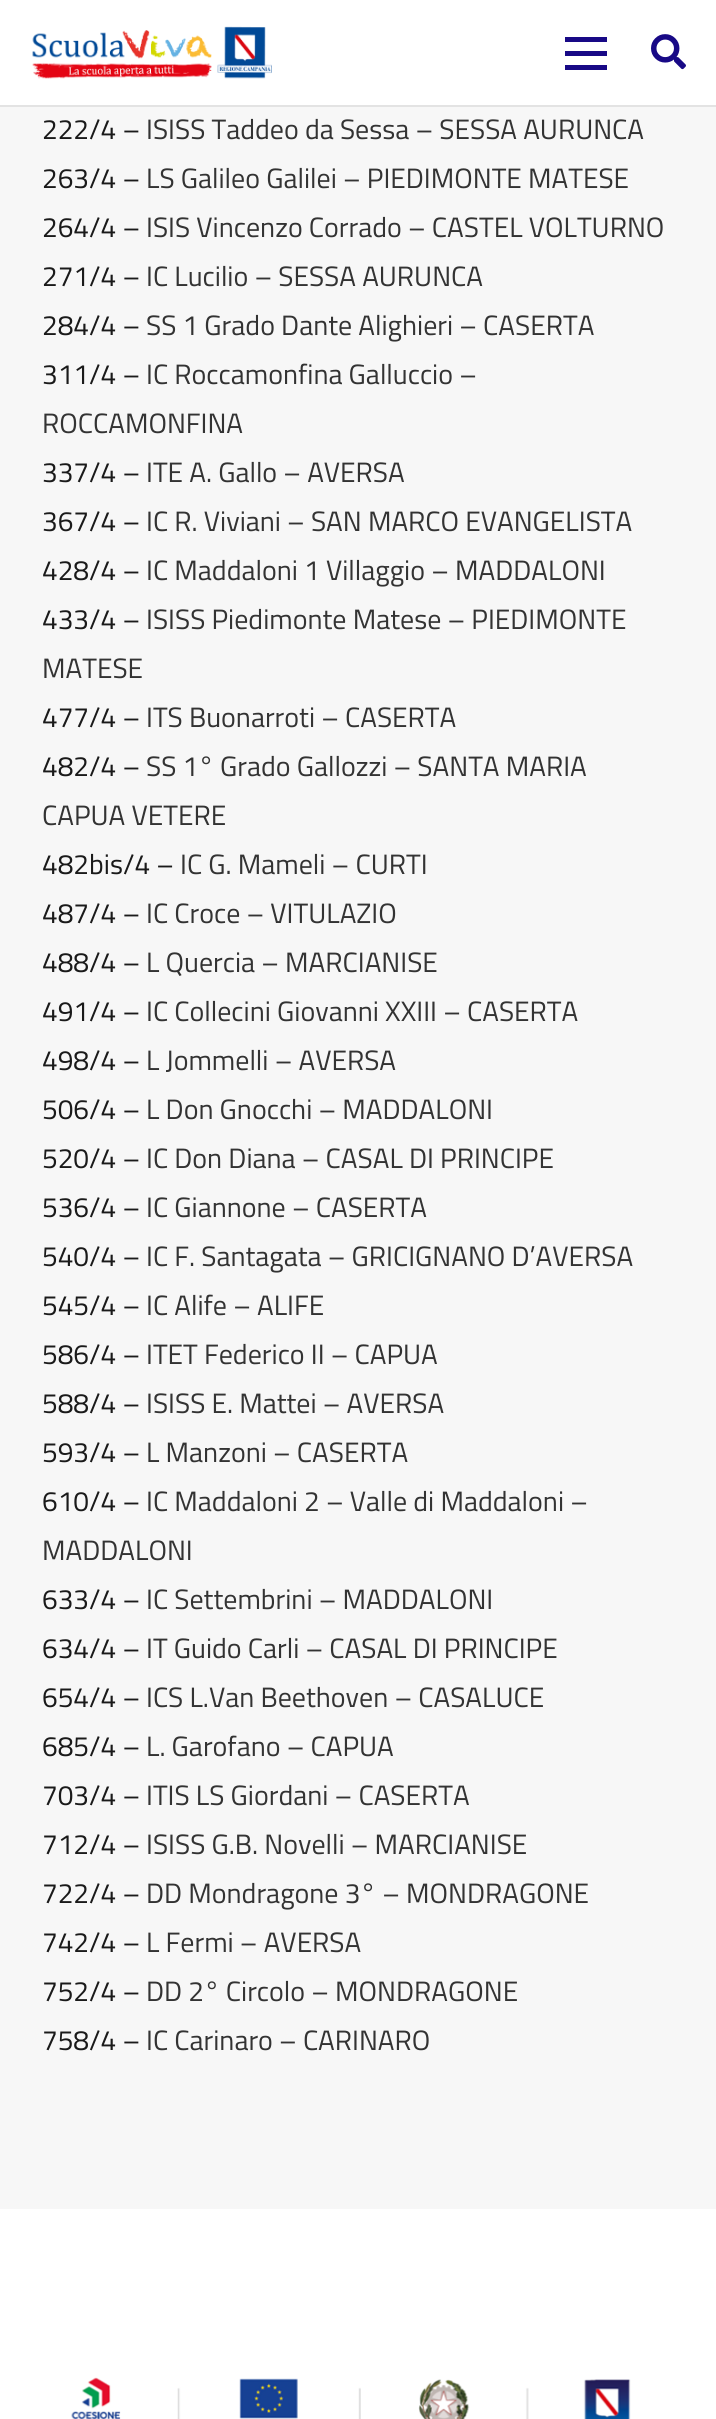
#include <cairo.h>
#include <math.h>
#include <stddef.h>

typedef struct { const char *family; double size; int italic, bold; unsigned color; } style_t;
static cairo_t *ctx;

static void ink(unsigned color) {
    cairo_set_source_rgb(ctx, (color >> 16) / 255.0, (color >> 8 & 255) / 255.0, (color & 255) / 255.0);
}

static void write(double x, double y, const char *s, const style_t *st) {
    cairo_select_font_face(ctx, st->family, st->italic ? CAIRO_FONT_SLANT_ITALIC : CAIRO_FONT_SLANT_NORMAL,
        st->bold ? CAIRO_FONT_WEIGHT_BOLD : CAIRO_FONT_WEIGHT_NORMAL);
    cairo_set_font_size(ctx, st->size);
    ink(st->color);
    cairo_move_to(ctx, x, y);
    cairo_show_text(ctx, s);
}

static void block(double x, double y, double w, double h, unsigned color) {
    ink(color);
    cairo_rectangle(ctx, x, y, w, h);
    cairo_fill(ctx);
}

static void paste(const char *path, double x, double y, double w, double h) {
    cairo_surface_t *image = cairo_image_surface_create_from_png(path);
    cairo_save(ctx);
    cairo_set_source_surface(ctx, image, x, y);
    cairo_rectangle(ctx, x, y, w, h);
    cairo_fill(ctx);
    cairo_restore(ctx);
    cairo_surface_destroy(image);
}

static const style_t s1 = {"Titillium Web", 28, 0, 0, 0x1a1a1a};
static const style_t s2 = {"Titillium Web", 28, 0, 0, 0x333333};

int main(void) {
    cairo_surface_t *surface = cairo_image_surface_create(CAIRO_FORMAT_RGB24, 716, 2419);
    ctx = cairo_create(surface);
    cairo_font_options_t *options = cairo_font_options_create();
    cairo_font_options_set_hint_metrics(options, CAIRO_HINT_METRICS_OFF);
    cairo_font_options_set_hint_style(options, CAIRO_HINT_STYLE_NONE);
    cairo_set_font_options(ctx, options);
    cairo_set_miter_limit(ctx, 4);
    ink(0xf7f7f7);
    cairo_paint(ctx);
    ink(0xe3e3e3);
    cairo_new_path(ctx);
    cairo_move_to(ctx, 0, 105);
    cairo_line_to(ctx, 0, 107);
    cairo_line_to(ctx, 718, 107);
    cairo_line_to(ctx, 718, 2);
    cairo_line_to(ctx, 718, 105);
    cairo_close_path(ctx);
    cairo_fill(ctx);
    block(0, 0, 716, 105, 0xffffff);
    paste("pic1.png", 32, 26, 240, 53);
    block(565, 51, 42, 5, 0x180986);
    block(565, 37, 42, 5, 0x180986);
    block(565, 65, 42, 5, 0x180986);
    paste("pic2.png", 651, 34, 35, 36);
    write(42, 139, "222/4 –", &s1);
    write(146, 139, "ISISS Taddeo da Sessa – SESSA AURUNCA", &s2);
    write(42, 188, "263/4 –", &s1);
    write(146, 188, "LS Galileo Galilei – PIEDIMONTE MATESE", &s2);
    write(42, 237, "264/4 –", &s1);
    write(146, 237, "ISIS Vincenzo Corrado – CASTEL VOLTURNO", &s2);
    write(42, 286, "271/4 –", &s1);
    write(146, 286, "IC Lucilio – SESSA AURUNCA", &s2);
    write(42, 335, "284/4 –", &s1);
    write(146, 335, "SS 1 Grado Dante Alighieri – CASERTA", &s2);
    write(42, 384, "311/4 –", &s1);
    write(146, 384, "IC Roccamonfina Galluccio –", &s2);
    write(42, 433, "ROCCAMONFINA", &s2);
    write(42, 482, "337/4 –", &s1);
    write(146, 482, "ITE A. Gallo – AVERSA", &s2);
    write(42, 531, "367/4 –", &s1);
    write(146, 531, "IC R. Viviani – SAN MARCO EVANGELISTA", &s2);
    write(42, 580, "428/4 –", &s1);
    write(146, 580, "IC Maddaloni 1 Villaggio – MADDALONI", &s2);
    write(42, 629, "433/4 –", &s1);
    write(146, 629, "ISISS Piedimonte Matese – PIEDIMONTE", &s2);
    write(42, 678, "MATESE", &s2);
    write(42, 727, "477/4 –", &s1);
    write(146, 727, "ITS Buonarroti – CASERTA", &s2);
    write(42, 776, "482/4 –", &s1);
    write(146, 776, "SS 1° Grado Gallozzi – SANTA MARIA", &s2);
    write(42, 825, "CAPUA VETERE", &s2);
    write(42, 874, "482bis/4 –", &s1);
    write(180, 874, "IC G. Mameli – CURTI", &s2);
    write(42, 923, "487/4 –", &s1);
    write(146, 923, "IC Croce – VITULAZIO", &s2);
    write(42, 972, "488/4 –", &s1);
    write(146, 972, "L Quercia – MARCIANISE", &s2);
    write(42, 1021, "491/4 –", &s1);
    write(146, 1021, "IC Collecini Giovanni XXIII – CASERTA", &s2);
    write(42, 1070, "498/4 –", &s1);
    write(146, 1070, "L Jommelli – AVERSA", &s2);
    write(42, 1119, "506/4 –", &s1);
    write(146, 1119, "L Don Gnocchi – MADDALONI", &s2);
    write(42, 1168, "520/4 –", &s1);
    write(146, 1168, "IC Don Diana – CASAL DI PRINCIPE", &s2);
    write(42, 1217, "536/4 –", &s1);
    write(146, 1217, "IC Giannone – CASERTA", &s2);
    write(42, 1266, "540/4 –", &s1);
    write(146, 1266, "IC F. Santagata – GRICIGNANO D’AVERSA", &s2);
    write(42, 1315, "545/4 –", &s1);
    write(146, 1315, "IC Alife – ALIFE", &s2);
    write(42, 1364, "586/4 –", &s1);
    write(146, 1364, "ITET Federico II – CAPUA", &s2);
    write(42, 1413, "588/4 –", &s1);
    write(146, 1413, "ISISS E. Mattei – AVERSA", &s2);
    write(42, 1462, "593/4 –", &s1);
    write(146, 1462, "L Manzoni – CASERTA", &s2);
    write(42, 1511, "610/4 –", &s1);
    write(146, 1511, "IC Maddaloni 2 – Valle di Maddaloni –", &s2);
    write(42, 1560, "MADDALONI", &s2);
    write(42, 1609, "633/4 –", &s1);
    write(146, 1609, "IC Settembrini – MADDALONI", &s2);
    write(42, 1658, "634/4 –", &s1);
    write(146, 1658, "IT Guido Carli – CASAL DI PRINCIPE", &s2);
    write(42, 1707, "654/4 –", &s1);
    write(146, 1707, "ICS L.Van Beethoven – CASALUCE", &s2);
    write(42, 1756, "685/4 –", &s1);
    write(146, 1756, "L. Garofano – CAPUA", &s2);
    write(42, 1805, "703/4 –", &s1);
    write(146, 1805, "ITIS LS Giordani – CASERTA", &s2);
    write(42, 1854, "712/4 –", &s1);
    write(146, 1854, "ISISS G.B. Novelli – MARCIANISE", &s2);
    write(42, 1903, "722/4 –", &s1);
    write(146, 1903, "DD Mondragone 3° – MONDRAGONE", &s2);
    write(42, 1952, "742/4 –", &s1);
    write(146, 1952, "L Fermi – AVERSA", &s2);
    write(42, 2001, "752/4 –", &s1);
    write(146, 2001, "DD 2° Circolo – MONDRAGONE", &s2);
    write(42, 2050, "758/4 –", &s1);
    write(146, 2050, "IC Carinaro – CARINARO", &s2);
    block(0, 2209, 716, 210, 0xffffff);
    paste("pic3.png", 71, 2377, 560, 42);
    cairo_surface_write_to_png(surface, "screenshot.png");
    cairo_font_options_destroy(options);
    cairo_destroy(ctx);
    cairo_surface_destroy(surface);
    return 0;
}
